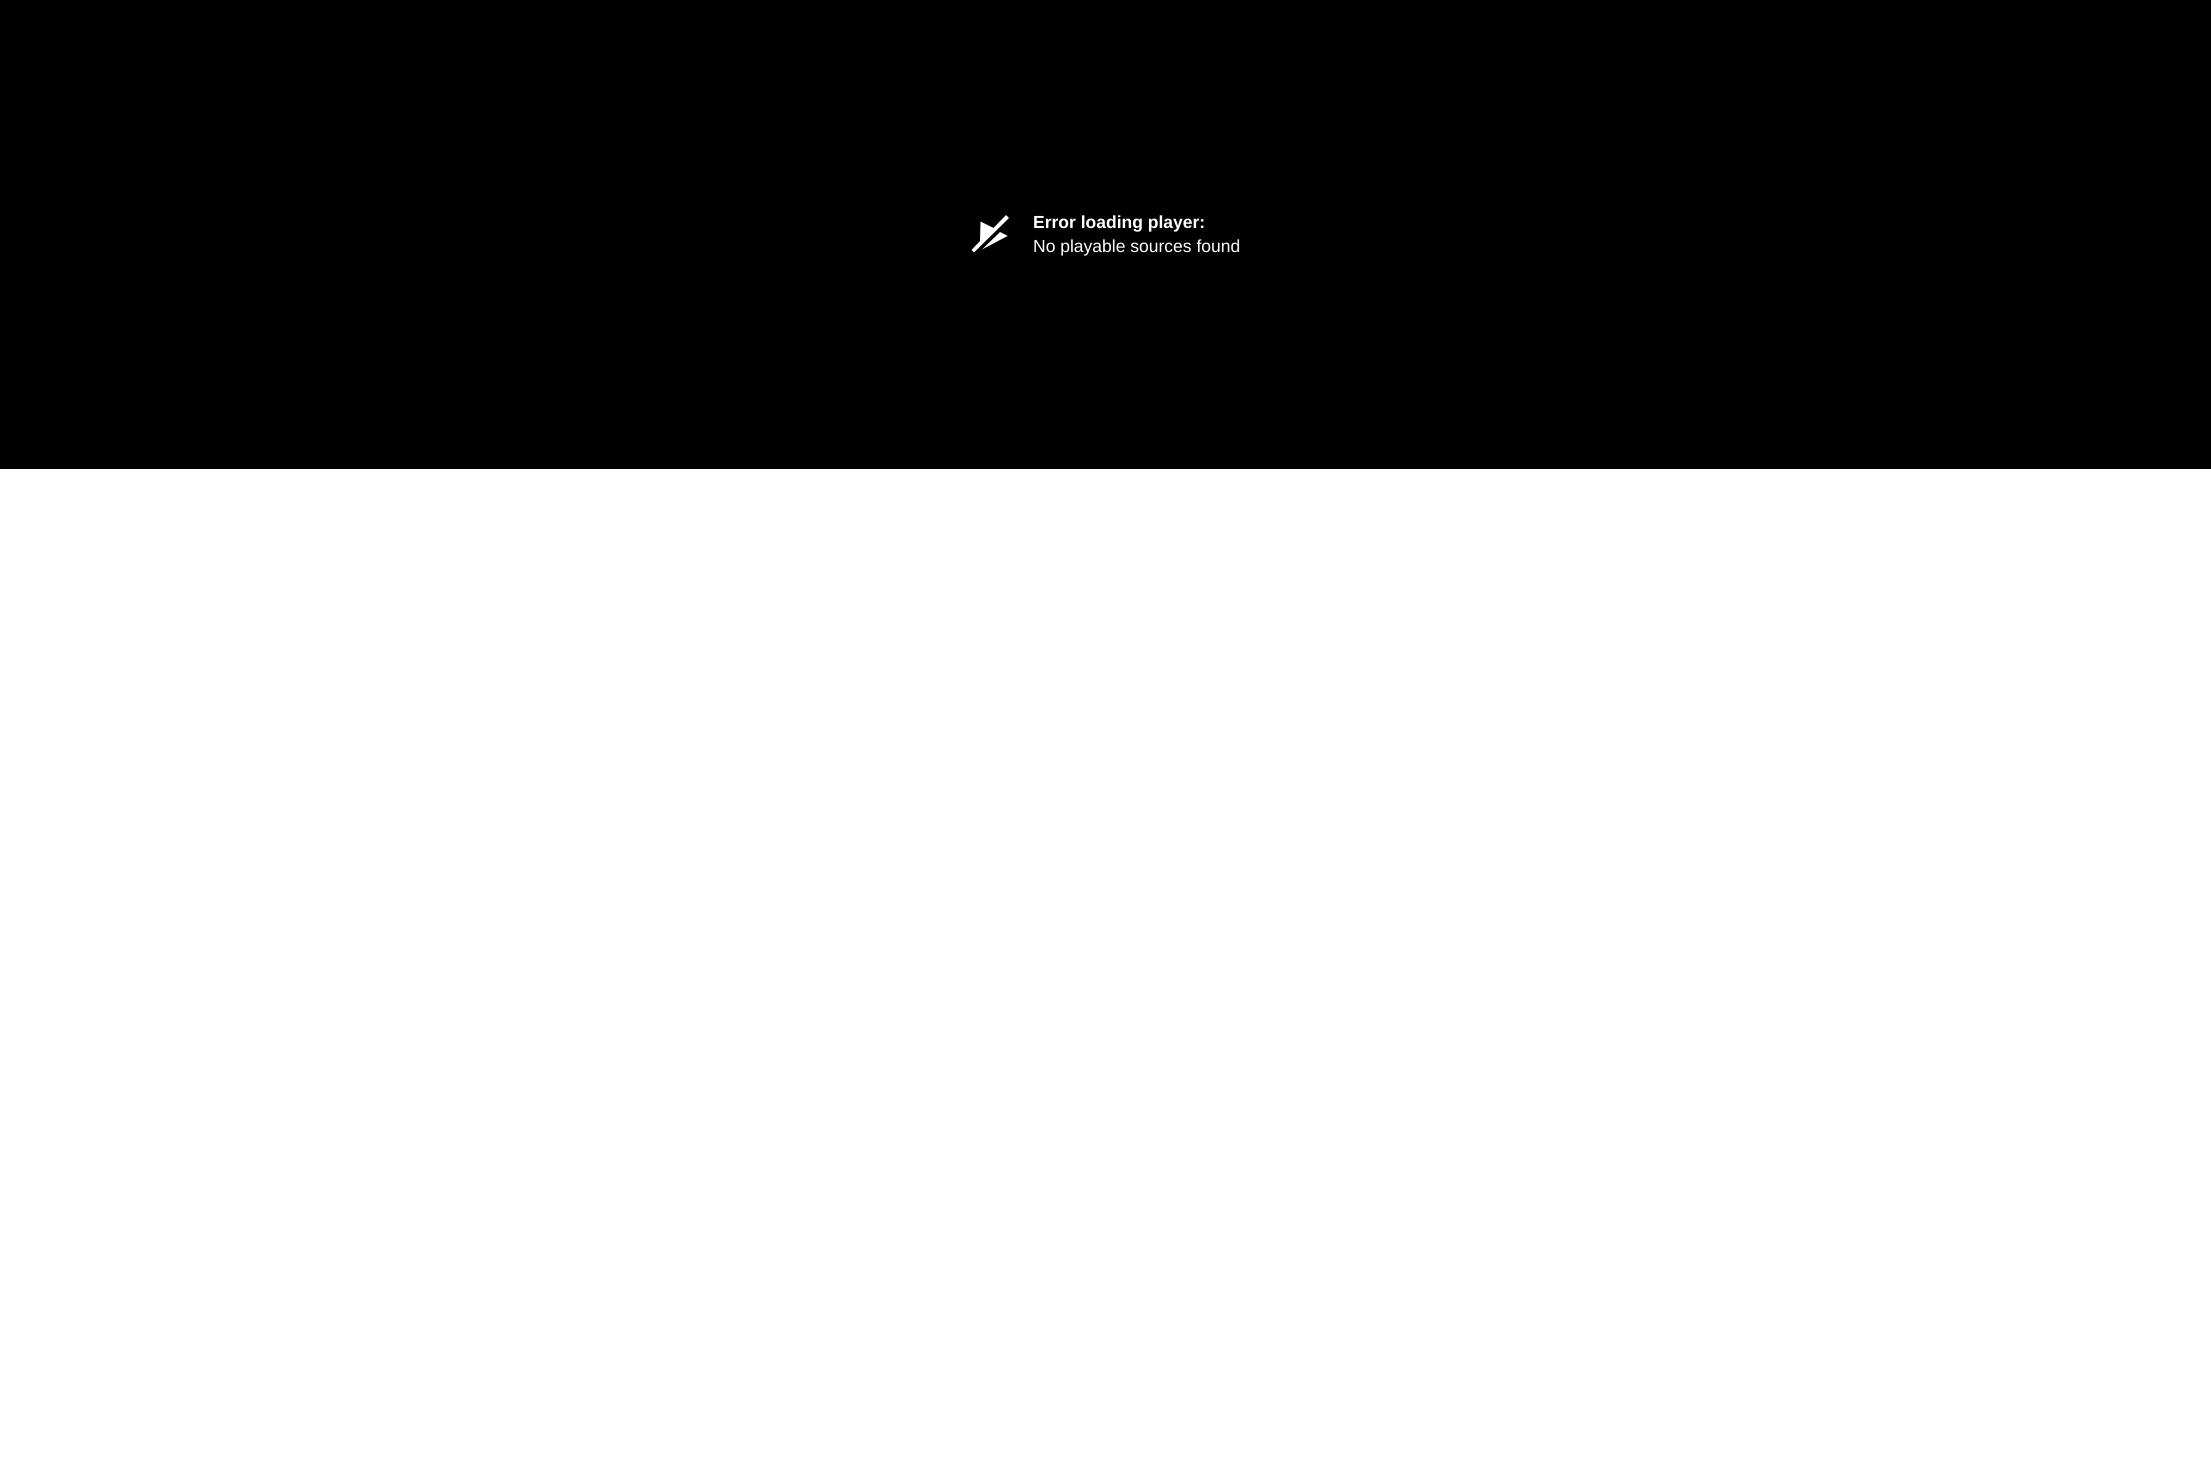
#include <cairo.h>
#include <math.h>
#include <stddef.h>

typedef struct { const char *family; double size; int italic, bold; unsigned color; } style_t;
static cairo_t *ctx;

static void ink(unsigned color) {
    cairo_set_source_rgb(ctx, (color >> 16) / 255.0, (color >> 8 & 255) / 255.0, (color & 255) / 255.0);
}

static void write(double x, double y, const char *s, const style_t *st) {
    cairo_select_font_face(ctx, st->family, st->italic ? CAIRO_FONT_SLANT_ITALIC : CAIRO_FONT_SLANT_NORMAL,
        st->bold ? CAIRO_FONT_WEIGHT_BOLD : CAIRO_FONT_WEIGHT_NORMAL);
    cairo_set_font_size(ctx, st->size);
    ink(st->color);
    cairo_move_to(ctx, x, y);
    cairo_show_text(ctx, s);
}

static void block(double x, double y, double w, double h, unsigned color) {
    ink(color);
    cairo_rectangle(ctx, x, y, w, h);
    cairo_fill(ctx);
}

static const style_t s1 = {"Liberation Sans", 17.5, 0, 1, 0xffffff};
static const style_t s2 = {"Liberation Sans", 17.5, 0, 0, 0xffffff};

int main(void) {
    cairo_surface_t *surface = cairo_image_surface_create(CAIRO_FORMAT_RGB24, 2211, 1457);
    ctx = cairo_create(surface);
    cairo_font_options_t *options = cairo_font_options_create();
    cairo_font_options_set_hint_metrics(options, CAIRO_HINT_METRICS_OFF);
    cairo_font_options_set_hint_style(options, CAIRO_HINT_STYLE_NONE);
    cairo_set_font_options(ctx, options);
    cairo_set_miter_limit(ctx, 4);
    ink(0xffffff);
    cairo_paint(ctx);
    block(0, 0, 2211, 469, 0x000000);
    ink(0xffffff);
    cairo_new_path(ctx);
    cairo_move_to(ctx, 1007.5, 236);
    cairo_line_to(ctx, 982, 249.5);
    cairo_line_to(ctx, 1000, 232);
    cairo_curve_to(ctx, 1007, 235.5, 1008.5, 236, 1007.5, 236.5);
    cairo_close_path(ctx);
    cairo_move_to(ctx, 1006, 215);
    cairo_line_to(ctx, 993.5, 228);
    cairo_line_to(ctx, 980.5, 221.5);
    cairo_line_to(ctx, 980, 241);
    cairo_line_to(ctx, 971.5, 250);
    cairo_line_to(ctx, 974, 252.5);
    cairo_line_to(ctx, 1009, 218);
    cairo_close_path(ctx);
    cairo_fill(ctx);
    write(1033, 228, "Error loading player:", &s1);
    write(1033, 252, "No playable sources found", &s2);
    cairo_surface_write_to_png(surface, "screenshot.png");
    cairo_font_options_destroy(options);
    cairo_destroy(ctx);
    cairo_surface_destroy(surface);
    return 0;
}
